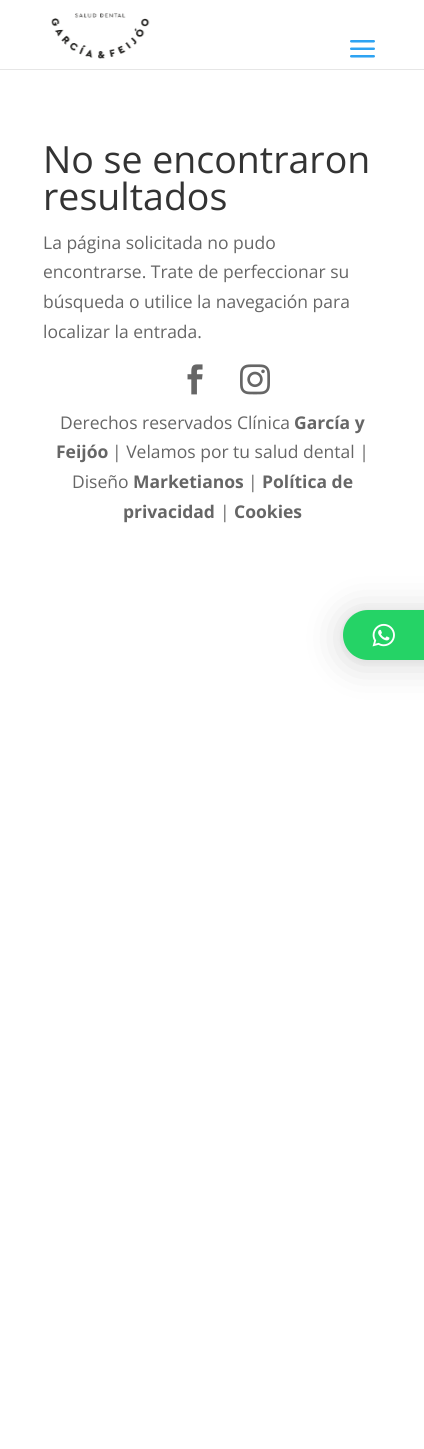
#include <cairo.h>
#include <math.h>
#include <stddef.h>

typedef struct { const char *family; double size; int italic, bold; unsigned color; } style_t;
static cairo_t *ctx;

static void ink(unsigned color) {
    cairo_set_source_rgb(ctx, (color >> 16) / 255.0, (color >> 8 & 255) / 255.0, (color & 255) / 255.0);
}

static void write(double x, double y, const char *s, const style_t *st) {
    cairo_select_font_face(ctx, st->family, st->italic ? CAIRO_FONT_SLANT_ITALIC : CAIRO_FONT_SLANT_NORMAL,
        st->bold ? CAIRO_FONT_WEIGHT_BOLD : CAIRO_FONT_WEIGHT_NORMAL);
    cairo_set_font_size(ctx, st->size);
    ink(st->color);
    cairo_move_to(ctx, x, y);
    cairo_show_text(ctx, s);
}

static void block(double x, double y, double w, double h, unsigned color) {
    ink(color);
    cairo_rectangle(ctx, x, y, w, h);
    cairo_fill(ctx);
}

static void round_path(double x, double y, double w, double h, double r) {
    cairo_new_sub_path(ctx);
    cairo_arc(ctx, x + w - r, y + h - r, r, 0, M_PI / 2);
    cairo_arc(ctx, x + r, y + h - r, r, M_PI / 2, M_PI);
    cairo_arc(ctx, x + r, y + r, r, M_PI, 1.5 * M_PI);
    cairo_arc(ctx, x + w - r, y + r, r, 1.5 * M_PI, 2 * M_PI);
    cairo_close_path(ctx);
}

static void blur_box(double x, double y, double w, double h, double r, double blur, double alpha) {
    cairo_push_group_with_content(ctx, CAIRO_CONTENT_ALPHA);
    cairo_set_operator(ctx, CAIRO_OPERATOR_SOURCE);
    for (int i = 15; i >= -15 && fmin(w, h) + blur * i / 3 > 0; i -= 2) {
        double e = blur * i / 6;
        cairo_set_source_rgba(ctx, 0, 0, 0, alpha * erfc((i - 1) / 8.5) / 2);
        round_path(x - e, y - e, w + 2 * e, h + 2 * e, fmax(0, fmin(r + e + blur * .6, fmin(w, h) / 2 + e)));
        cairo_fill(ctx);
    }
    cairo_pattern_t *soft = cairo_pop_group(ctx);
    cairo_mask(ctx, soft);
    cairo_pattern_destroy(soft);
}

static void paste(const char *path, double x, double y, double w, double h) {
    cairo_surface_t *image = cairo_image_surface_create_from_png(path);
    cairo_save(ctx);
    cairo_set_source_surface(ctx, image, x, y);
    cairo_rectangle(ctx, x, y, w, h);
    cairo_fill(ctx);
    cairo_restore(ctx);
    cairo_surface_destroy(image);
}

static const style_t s1 = {"Open Sans", 37.5, 0, 0, 0x333333};
static const style_t s2 = {"Open Sans", 17.5, 0, 0, 0x666666};
static const style_t s3 = {"Open Sans", 17.5, 0, 1, 0x666666};

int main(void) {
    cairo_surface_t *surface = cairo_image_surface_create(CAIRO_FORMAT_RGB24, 424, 1449);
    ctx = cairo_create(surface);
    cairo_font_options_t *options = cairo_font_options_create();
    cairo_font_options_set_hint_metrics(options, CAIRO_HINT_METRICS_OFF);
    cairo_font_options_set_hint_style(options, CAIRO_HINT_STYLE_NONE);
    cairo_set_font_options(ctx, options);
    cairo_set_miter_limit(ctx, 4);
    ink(0xffffff);
    cairo_paint(ctx);
    block(0, 69, 424, 1, 0xe6e6e6);
    paste("pic1.png", 51, 13, 99, 46);
    paste("pic2.png", 350, 40, 25, 18);
    write(43, 173, "No se encontraron", &s1);
    write(43, 210, "resultados", &s1);
    write(43, 249, "La página solicitada no pudo", &s2);
    write(43, 278, "encontrarse. Trate de perfeccionar su", &s2);
    write(43, 308, "búsqueda o utilice la navegación para", &s2);
    write(43, 338, "localizar la entrada.", &s2);
    paste("pic3.png", 187, 364, 16, 31);
    paste("pic4.png", 240, 364, 30, 31);
    write(60, 429, "Derechos reservados Clínica", &s2);
    write(294, 429, "García y", &s3);
    write(56, 458, "Feijóo", &s3);
    write(112, 458, "| Velamos por tu salud dental |", &s2);
    write(72, 488, "Diseño", &s2);
    write(133, 488, "Marketianos", &s3);
    write(248, 488, "|", &s2);
    write(262, 488, "Política de", &s3);
    write(123, 518, "privacidad", &s3);
    write(220, 518, "|", &s2);
    write(234, 518, "Cookies", &s3);
    ink(0x000000);
    blur_box(343, 613, 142, 50, 25, 20, 0.16);
    blur_box(343, 611, 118, 50, 25, 4, 0.06);
    ink(0x25d366);
    round_path(343, 610, 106, 50, 25);
    cairo_fill(ctx);
    paste("pic5.png", 372, 623, 23, 24);
    cairo_surface_write_to_png(surface, "screenshot.png");
    cairo_font_options_destroy(options);
    cairo_destroy(ctx);
    cairo_surface_destroy(surface);
    return 0;
}
